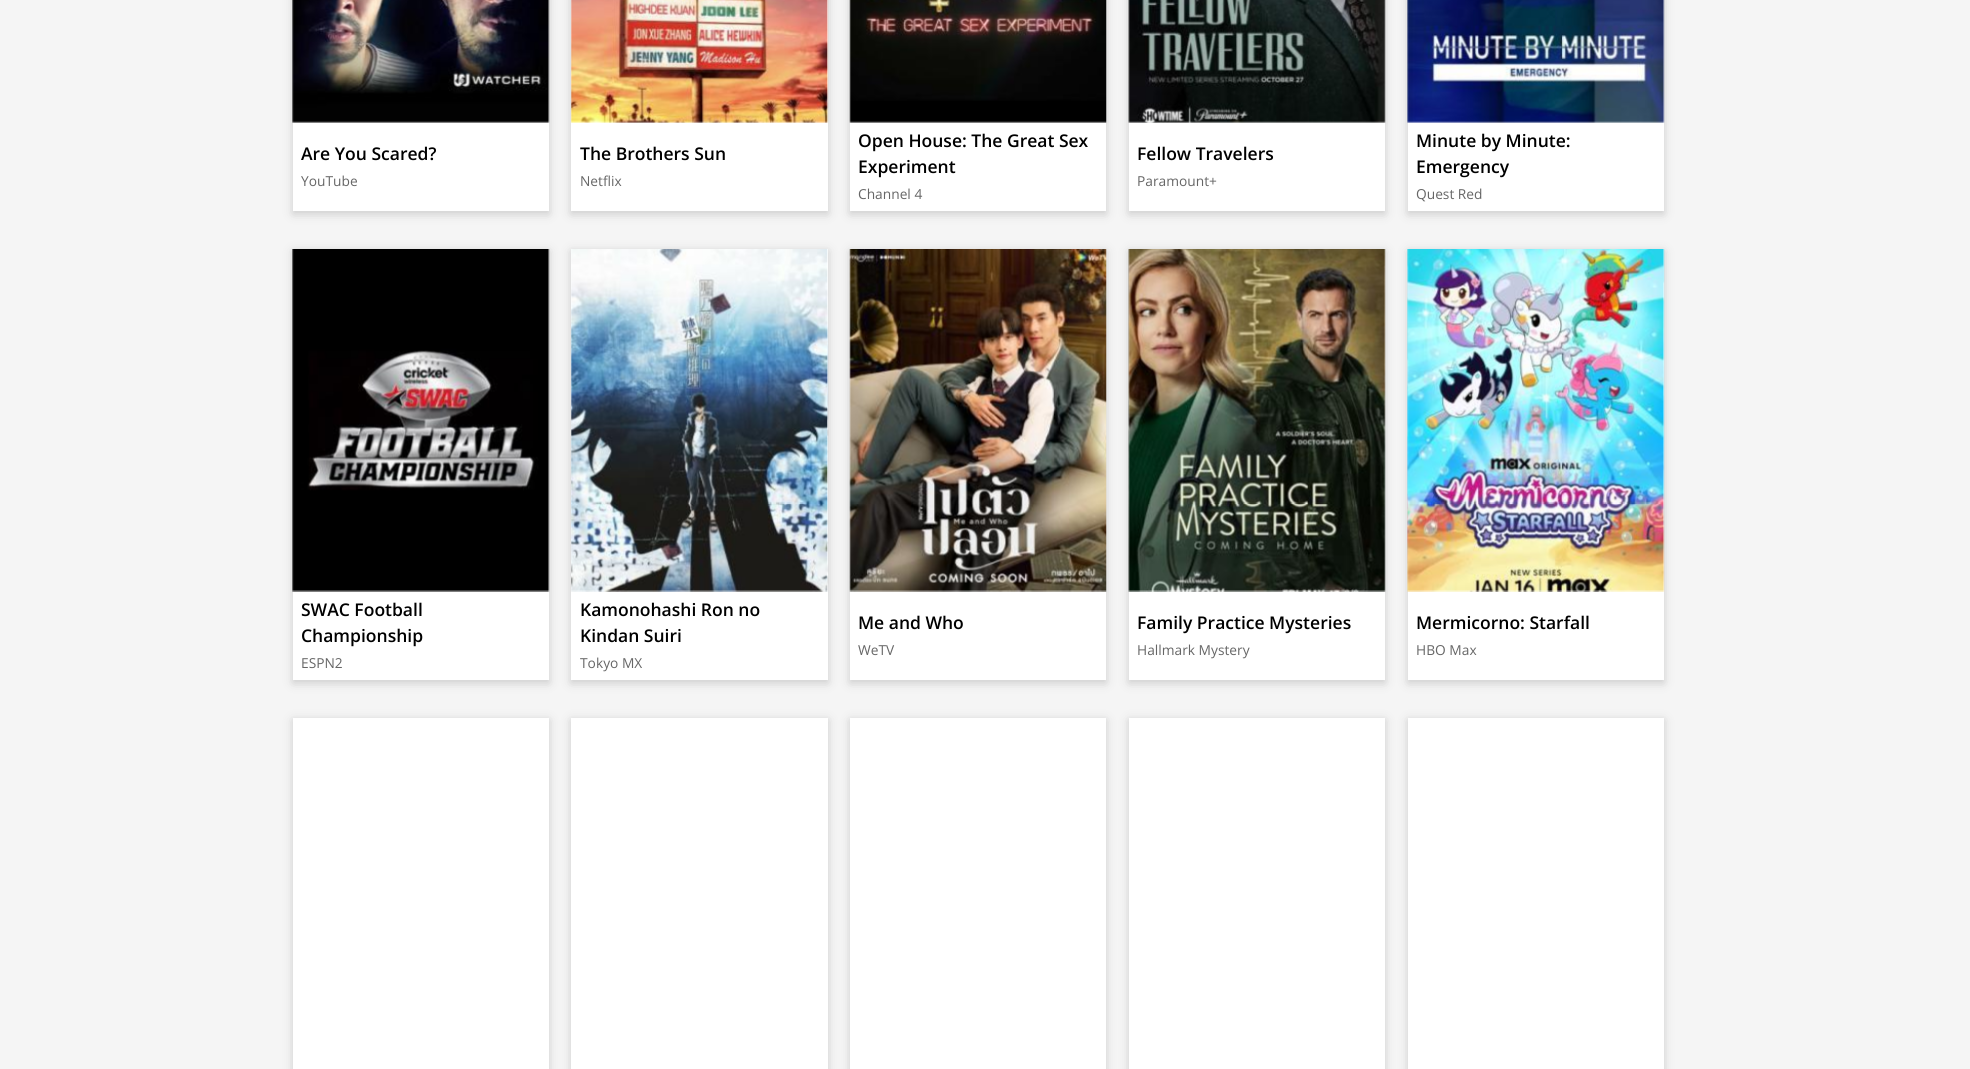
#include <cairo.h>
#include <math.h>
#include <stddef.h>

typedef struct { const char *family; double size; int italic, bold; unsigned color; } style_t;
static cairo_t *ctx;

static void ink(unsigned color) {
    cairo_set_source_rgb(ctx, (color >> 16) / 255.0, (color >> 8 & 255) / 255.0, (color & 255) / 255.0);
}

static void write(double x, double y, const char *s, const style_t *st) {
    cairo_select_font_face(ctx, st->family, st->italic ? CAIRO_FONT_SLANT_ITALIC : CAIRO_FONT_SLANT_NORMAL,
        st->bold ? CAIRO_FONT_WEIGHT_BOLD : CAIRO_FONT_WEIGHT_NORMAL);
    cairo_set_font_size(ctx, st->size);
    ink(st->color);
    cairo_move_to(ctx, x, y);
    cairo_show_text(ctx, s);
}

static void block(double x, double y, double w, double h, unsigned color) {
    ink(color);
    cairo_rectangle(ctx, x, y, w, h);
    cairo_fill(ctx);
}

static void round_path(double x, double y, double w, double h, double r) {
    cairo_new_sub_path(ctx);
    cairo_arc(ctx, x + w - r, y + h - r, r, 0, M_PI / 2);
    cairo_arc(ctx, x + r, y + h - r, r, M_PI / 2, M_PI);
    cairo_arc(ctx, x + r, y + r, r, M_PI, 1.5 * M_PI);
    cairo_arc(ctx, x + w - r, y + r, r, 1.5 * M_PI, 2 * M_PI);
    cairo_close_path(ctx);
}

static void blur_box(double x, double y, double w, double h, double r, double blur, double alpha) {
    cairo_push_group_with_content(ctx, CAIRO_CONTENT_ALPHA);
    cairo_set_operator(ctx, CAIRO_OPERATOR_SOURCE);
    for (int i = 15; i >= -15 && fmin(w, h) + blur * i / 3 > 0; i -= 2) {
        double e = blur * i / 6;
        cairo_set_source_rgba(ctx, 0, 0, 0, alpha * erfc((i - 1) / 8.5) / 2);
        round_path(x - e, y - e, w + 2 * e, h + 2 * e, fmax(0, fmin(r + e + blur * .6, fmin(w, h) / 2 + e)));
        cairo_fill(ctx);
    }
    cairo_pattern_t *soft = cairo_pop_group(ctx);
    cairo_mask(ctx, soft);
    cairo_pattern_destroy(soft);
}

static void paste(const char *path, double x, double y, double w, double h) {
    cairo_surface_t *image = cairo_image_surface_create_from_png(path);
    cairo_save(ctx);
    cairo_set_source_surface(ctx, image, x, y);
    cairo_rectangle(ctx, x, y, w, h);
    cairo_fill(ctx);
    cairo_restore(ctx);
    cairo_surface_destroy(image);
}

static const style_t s1 = {"Open Sans SemiBold", 17.5, 0, 0, 0x000000};
static const style_t s2 = {"Open Sans", 13.75, 0, 0, 0x666666};

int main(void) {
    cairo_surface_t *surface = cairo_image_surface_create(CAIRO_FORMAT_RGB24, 1970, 1069);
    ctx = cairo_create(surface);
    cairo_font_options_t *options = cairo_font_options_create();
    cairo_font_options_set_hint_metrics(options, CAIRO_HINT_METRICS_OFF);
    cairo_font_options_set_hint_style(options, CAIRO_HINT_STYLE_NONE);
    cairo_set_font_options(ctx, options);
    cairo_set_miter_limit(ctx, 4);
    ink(0xf5f5f5);
    cairo_paint(ctx);
    ink(0x000000);
    blur_box(293, -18, 256, 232, 0, 6, 0.12);
    blur_box(293, -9, 256, 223, 0, 3, 0.06);
    block(293, 0, 256, 211, 0xffffff);
    paste("pic1.png", 292, 0, 258, 123);
    write(301, 160, "Are You Scared?", &s1);
    write(301, 186, "YouTube", &s2);
    ink(0x000000);
    blur_box(571, -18, 257, 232, 0, 6, 0.12);
    blur_box(571, -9, 257, 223, 0, 3, 0.06);
    block(571, 0, 257, 211, 0xffffff);
    paste("pic2.png", 571, 0, 258, 123);
    write(580, 160, "The Brothers Sun", &s1);
    write(580, 186, "Netflix", &s2);
    ink(0x000000);
    blur_box(850, -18, 256, 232, 0, 6, 0.12);
    blur_box(850, -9, 256, 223, 0, 3, 0.06);
    block(850, 0, 256, 211, 0xffffff);
    paste("pic3.png", 849, 0, 258, 123);
    write(858, 147, "Open House: The Great Sex", &s1);
    write(858, 173, "Experiment", &s1);
    write(858, 199, "Channel 4", &s2);
    ink(0x000000);
    blur_box(1129, -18, 256, 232, 0, 6, 0.12);
    blur_box(1129, -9, 256, 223, 0, 3, 0.06);
    block(1129, 0, 256, 211, 0xffffff);
    paste("pic4.png", 1128, 0, 258, 123);
    write(1137, 160, "Fellow Travelers", &s1);
    write(1137, 186, "Paramount+", &s2);
    ink(0x000000);
    blur_box(1408, -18, 256, 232, 0, 6, 0.12);
    blur_box(1408, -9, 256, 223, 0, 3, 0.06);
    block(1408, 0, 256, 211, 0xffffff);
    paste("pic5.png", 1407, 0, 258, 123);
    write(1416, 147, "Minute by Minute:", &s1);
    write(1416, 173, "Emergency", &s1);
    write(1416, 199, "Quest Red", &s2);
    ink(0x000000);
    blur_box(293, 251, 256, 432, 0, 6, 0.12);
    blur_box(293, 251, 256, 432, 0, 3, 0.06);
    block(293, 249, 256, 431, 0xffffff);
    paste("pic6.png", 292, 249, 258, 343);
    write(301, 616, "SWAC Football", &s1);
    write(301, 642, "Championship", &s1);
    write(301, 668, "ESPN2", &s2);
    ink(0x000000);
    blur_box(571, 251, 257, 432, 0, 6, 0.12);
    blur_box(571, 251, 257, 432, 0, 3, 0.06);
    block(571, 249, 257, 431, 0xffffff);
    paste("pic7.png", 571, 249, 258, 343);
    write(580, 616, "Kamonohashi Ron no", &s1);
    write(580, 642, "Kindan Suiri", &s1);
    write(580, 668, "Tokyo MX", &s2);
    ink(0x000000);
    blur_box(850, 251, 256, 432, 0, 6, 0.12);
    blur_box(850, 251, 256, 432, 0, 3, 0.06);
    block(850, 249, 256, 431, 0xffffff);
    paste("pic8.png", 849, 249, 258, 343);
    write(858, 629, "Me and Who", &s1);
    write(858, 655, "WeTV", &s2);
    ink(0x000000);
    blur_box(1129, 251, 256, 432, 0, 6, 0.12);
    blur_box(1129, 251, 256, 432, 0, 3, 0.06);
    block(1129, 249, 256, 431, 0xffffff);
    paste("pic9.png", 1128, 249, 258, 343);
    write(1137, 629, "Family Practice Mysteries", &s1);
    write(1137, 655, "Hallmark Mystery", &s2);
    ink(0x000000);
    blur_box(1408, 251, 256, 432, 0, 6, 0.12);
    blur_box(1408, 251, 256, 432, 0, 3, 0.06);
    block(1408, 249, 256, 431, 0xffffff);
    paste("pic10.png", 1407, 249, 258, 343);
    write(1416, 629, "Mermicorno: Starfall", &s1);
    write(1416, 655, "HBO Max", &s2);
    ink(0x000000);
    blur_box(293, 720, 256, 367, 0, 6, 0.12);
    blur_box(293, 720, 256, 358, 0, 3, 0.06);
    block(293, 718, 256, 351, 0xffffff);
    ink(0x000000);
    blur_box(571, 720, 257, 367, 0, 6, 0.12);
    blur_box(571, 720, 257, 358, 0, 3, 0.06);
    block(571, 718, 257, 351, 0xffffff);
    ink(0x000000);
    blur_box(850, 720, 256, 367, 0, 6, 0.12);
    blur_box(850, 720, 256, 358, 0, 3, 0.06);
    block(850, 718, 256, 351, 0xffffff);
    ink(0x000000);
    blur_box(1129, 720, 256, 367, 0, 6, 0.12);
    blur_box(1129, 720, 256, 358, 0, 3, 0.06);
    block(1129, 718, 256, 351, 0xffffff);
    ink(0x000000);
    blur_box(1408, 720, 256, 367, 0, 6, 0.12);
    blur_box(1408, 720, 256, 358, 0, 3, 0.06);
    block(1408, 718, 256, 351, 0xffffff);
    cairo_surface_write_to_png(surface, "screenshot.png");
    cairo_font_options_destroy(options);
    cairo_destroy(ctx);
    cairo_surface_destroy(surface);
    return 0;
}
